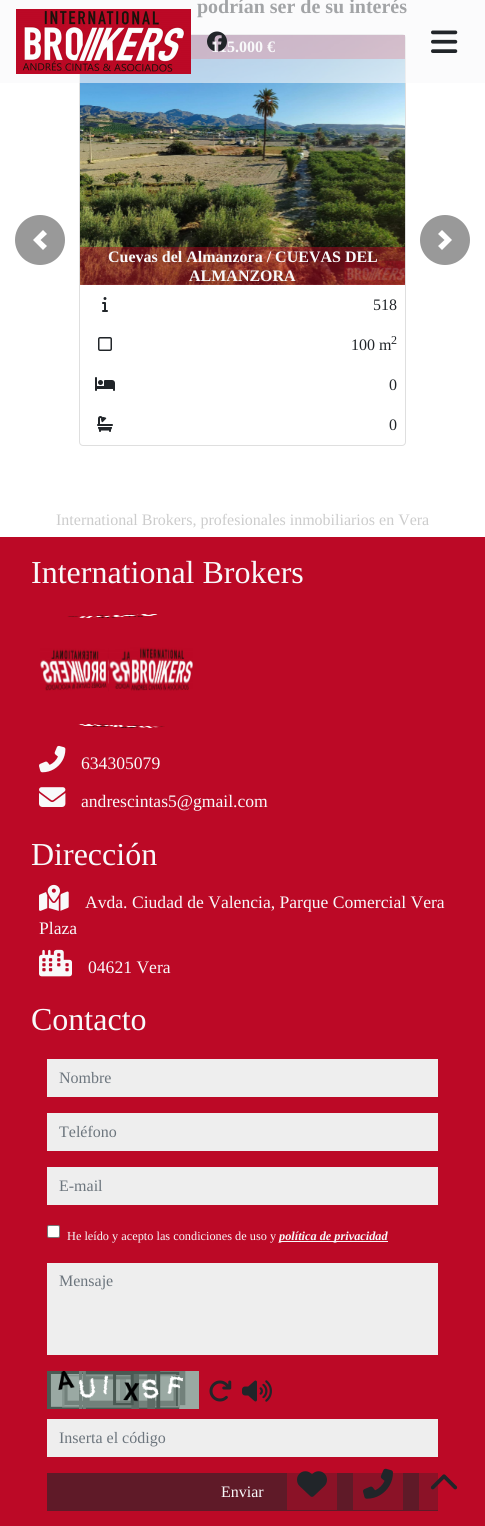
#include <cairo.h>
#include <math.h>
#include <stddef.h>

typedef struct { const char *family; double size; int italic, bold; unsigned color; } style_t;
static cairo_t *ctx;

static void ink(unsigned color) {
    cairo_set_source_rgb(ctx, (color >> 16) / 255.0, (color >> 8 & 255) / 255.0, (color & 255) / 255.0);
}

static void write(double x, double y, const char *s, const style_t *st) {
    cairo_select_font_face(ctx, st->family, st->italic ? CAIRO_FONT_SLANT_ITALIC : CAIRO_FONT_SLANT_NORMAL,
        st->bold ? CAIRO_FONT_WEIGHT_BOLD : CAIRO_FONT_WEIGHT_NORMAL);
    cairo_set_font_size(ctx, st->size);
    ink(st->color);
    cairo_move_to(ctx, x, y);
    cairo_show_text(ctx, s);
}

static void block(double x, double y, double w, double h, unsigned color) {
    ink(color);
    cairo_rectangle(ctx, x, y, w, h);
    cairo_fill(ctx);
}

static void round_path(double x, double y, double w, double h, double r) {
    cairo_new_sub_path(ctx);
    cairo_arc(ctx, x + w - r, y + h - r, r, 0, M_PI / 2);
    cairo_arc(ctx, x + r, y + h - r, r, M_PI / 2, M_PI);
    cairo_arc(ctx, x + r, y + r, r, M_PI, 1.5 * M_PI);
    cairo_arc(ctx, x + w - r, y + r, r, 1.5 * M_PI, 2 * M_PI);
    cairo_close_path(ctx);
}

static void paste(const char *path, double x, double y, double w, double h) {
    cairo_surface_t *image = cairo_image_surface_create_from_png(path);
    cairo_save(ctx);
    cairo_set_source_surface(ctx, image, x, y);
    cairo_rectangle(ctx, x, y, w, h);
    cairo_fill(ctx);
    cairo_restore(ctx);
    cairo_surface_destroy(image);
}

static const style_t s1 = {"Liberation Serif", 20, 0, 1, 0x212529};
static const style_t s2 = {"Liberation Serif", 16, 0, 1, 0xf8f9fa};
static const style_t s3 = {"Liberation Serif", 16, 0, 0, 0x212529};
static const style_t s4 = {"Liberation Serif", 12, 0, 0, 0x212529};
static const style_t s5 = {"Liberation Serif", 16, 0, 0, 0xcccccc};
static const style_t s6 = {"Liberation Serif", 32, 0, 0, 0xf8f9fa};
static const style_t s7 = {"Liberation Serif", 17.6, 0, 0, 0xf8f9fa};
static const style_t s8 = {"Liberation Serif", 16, 0, 0, 0x6c757d};
static const style_t s9 = {"Liberation Serif", 12.3, 0, 0, 0xf8f9fa};
static const style_t s10 = {"Liberation Serif", 12.3, 1, 1, 0xf8f9fa};
static const style_t s11 = {"Liberation Serif", 16, 0, 0, 0xf8f9fa};

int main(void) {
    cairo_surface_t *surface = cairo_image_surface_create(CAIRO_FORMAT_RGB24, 485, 1526);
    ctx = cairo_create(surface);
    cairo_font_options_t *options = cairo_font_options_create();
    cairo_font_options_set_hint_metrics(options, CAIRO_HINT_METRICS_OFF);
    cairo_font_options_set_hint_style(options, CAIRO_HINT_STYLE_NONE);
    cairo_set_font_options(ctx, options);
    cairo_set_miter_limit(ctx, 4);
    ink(0xffffff);
    cairo_paint(ctx);
    write(197, 13, "podrían ser de su interés", &s1);
    round_path(79.5, 34.5, 326, 411, 3.5);
    ink(0xdfdfdf);
    cairo_set_line_width(ctx, 1);
    cairo_stroke(ctx);
    paste("pic4.png", 80, 35, 325, 250);
    cairo_set_source_rgba(ctx, 0.737, 0.035, 0.149, 0.47);
    cairo_rectangle(ctx, 191, 35, 214, 24);
    cairo_fill(ctx);
    write(211, 52, "115.000 €", &s2);
    cairo_set_source_rgba(ctx, 0.973, 0.976, 0.98, 0.6);
    cairo_rectangle(ctx, 0, 0, 485, 83);
    cairo_fill(ctx);
    paste("pic1.png", 16, 9, 175, 65);
    paste("pic2.png", 207, 31, 20, 21);
    paste("pic3.png", 431, 30, 27, 23);
    ink(0x999999);
    cairo_arc(ctx, 40, 240, 25, 0, 2 * M_PI);
    cairo_fill(ctx);
    ink(0xffffff);
    cairo_new_path(ctx);
    cairo_move_to(ctx, 43, 230);
    cairo_line_to(ctx, 33, 240);
    cairo_line_to(ctx, 43, 250);
    cairo_line_to(ctx, 47, 246);
    cairo_line_to(ctx, 40.5, 240);
    cairo_line_to(ctx, 47, 234);
    cairo_close_path(ctx);
    cairo_fill(ctx);
    cairo_set_source_rgba(ctx, 0.737, 0.035, 0.149, 0.47);
    cairo_rectangle(ctx, 80, 247, 325, 38);
    cairo_fill(ctx);
    write(108, 262, "Cuevas del Almanzora / CUEVAS DEL", &s2);
    write(189, 281, "ALMANZORA", &s2);
    paste("pic5.png", 102, 297, 6, 15);
    write(373, 310, "518", &s3);
    paste("pic6.png", 98, 337, 14, 14);
    write(351, 350, "100 m", &s3);
    write(391, 344, "2", &s4);
    paste("pic7.png", 95, 377, 20, 14);
    write(389, 390, "0", &s3);
    paste("pic8.png", 97, 416, 16, 16);
    write(389, 430, "0", &s3);
    ink(0x999999);
    cairo_new_path(ctx);
    cairo_arc(ctx, 445, 240, 25, 0, 2 * M_PI);
    cairo_fill(ctx);
    ink(0xffffff);
    cairo_new_path(ctx);
    cairo_move_to(ctx, 442, 230);
    cairo_line_to(ctx, 438, 234);
    cairo_line_to(ctx, 444.5, 240);
    cairo_line_to(ctx, 438, 246);
    cairo_line_to(ctx, 442, 250);
    cairo_line_to(ctx, 452, 240);
    cairo_close_path(ctx);
    cairo_fill(ctx);
    write(56, 525, "International Brokers, profesionales inmobiliarios en Vera", &s5);
    block(0, 537, 485, 989, 0xbc0926);
    write(31, 583, "International Brokers", &s6);
    paste("pic9.png", 67, 614, 91, 4);
    paste("pic12.png", 107, 648, 2, 44);
    paste("pic10.png", 40, 648, 68, 44);
    paste("pic13.png", 108, 648, 85, 44);
    paste("pic11.png", 129, 647, 64, 44);
    paste("pic14.png", 78, 724, 87, 4);
    paste("pic15.png", 39, 745, 27, 28);
    write(81, 769, "634305079", &s7);
    paste("pic16.png", 39, 787, 27, 20);
    write(81, 807, "andrescintas5@gmail.com", &s7);
    write(31, 865, "Dirección", &s6);
    paste("pic17.png", 39, 884, 30, 27);
    write(85, 908, "Avda. Ciudad de Valencia, Parque Comercial Vera", &s7);
    write(39, 934, "Plaza", &s7);
    paste("pic18.png", 39, 949, 33, 28);
    write(88, 973, "04621 Vera", &s7);
    write(31, 1030, "Contacto", &s6);
    block(47, 1059, 391, 38, 0xeeeeee);
    write(59, 1083, "Nombre", &s8);
    block(47, 1113, 391, 38, 0xeeeeee);
    write(59, 1137, "Teléfono", &s8);
    block(47, 1167, 391, 38, 0xeeeeee);
    write(59, 1191, "E-mail", &s8);
    ink(0xffffff);
    round_path(47.5, 1225.5, 12, 12, 1.5);
    cairo_fill_preserve(ctx);
    ink(0x767676);
    cairo_stroke(ctx);
    write(67, 1240, "He leído y acepto las condiciones de uso y", &s9);
    block(279, 1241, 109, 1, 0xf8f9fa);
    write(279, 1240, "política de privacidad", &s10);
    block(47, 1263, 391, 92, 0xeeeeee);
    write(59, 1286, "Mensaje", &s8);
    paste("pic19.png", 47, 1371, 152, 38);
    paste("pic20.png", 209, 1380, 23, 22);
    paste("pic21.png", 242, 1380, 30, 22);
    block(47, 1419, 391, 38, 0xeeeeee);
    write(59, 1443, "Inserta el código", &s8);
    block(47, 1473, 391, 38, 0x5f1a28);
    block(287, 1473, 50, 37, 0x8b1227);
    block(353, 1473, 50, 37, 0x8b1227);
    block(419, 1473, 19, 37, 0x8b1227);
    write(221, 1497, "Enviar", &s11);
    paste("pic22.png", 297, 1471, 30, 26);
    paste("pic23.png", 363, 1468, 30, 31);
    paste("pic24.png", 430, 1474, 28, 16);
    cairo_surface_write_to_png(surface, "screenshot.png");
    cairo_font_options_destroy(options);
    cairo_destroy(ctx);
    cairo_surface_destroy(surface);
    return 0;
}
